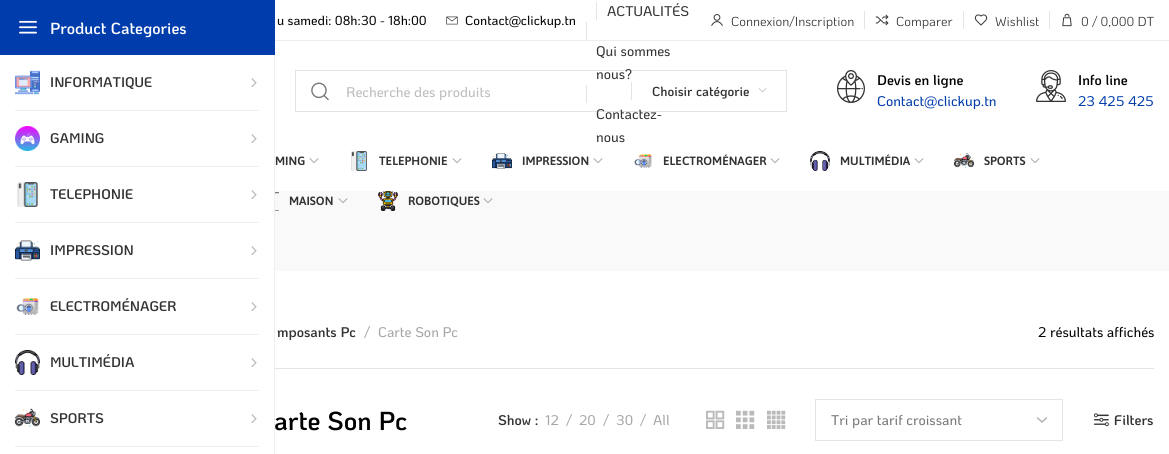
#include <cairo.h>
#include <math.h>
#include <stddef.h>

typedef struct { const char *family; double size; int italic, bold; unsigned color; } style_t;
static cairo_t *ctx;

static void ink(unsigned color) {
    cairo_set_source_rgb(ctx, (color >> 16) / 255.0, (color >> 8 & 255) / 255.0, (color & 255) / 255.0);
}

static void write(double x, double y, const char *s, const style_t *st) {
    cairo_select_font_face(ctx, st->family, st->italic ? CAIRO_FONT_SLANT_ITALIC : CAIRO_FONT_SLANT_NORMAL,
        st->bold ? CAIRO_FONT_WEIGHT_BOLD : CAIRO_FONT_WEIGHT_NORMAL);
    cairo_set_font_size(ctx, st->size);
    ink(st->color);
    cairo_move_to(ctx, x, y);
    cairo_show_text(ctx, s);
}

static void block(double x, double y, double w, double h, unsigned color) {
    ink(color);
    cairo_rectangle(ctx, x, y, w, h);
    cairo_fill(ctx);
}

static void paste(const char *path, double x, double y, double w, double h) {
    cairo_surface_t *image = cairo_image_surface_create_from_png(path);
    cairo_save(ctx);
    cairo_set_source_surface(ctx, image, x, y);
    cairo_rectangle(ctx, x, y, w, h);
    cairo_fill(ctx);
    cairo_restore(ctx);
    cairo_surface_destroy(image);
}

static const style_t s1 = {"KoHo SemiBold", 16, 0, 0, 0xffffff};
static const style_t s2 = {"KoHo SemiBold", 14, 0, 0, 0x333333};
static const style_t s3 = {"KoHo Medium", 13, 0, 0, 0x000000};
static const style_t s4 = {"KoHo Medium", 14, 0, 0, 0x333333};
static const style_t s5 = {"KoHo", 13, 0, 0, 0x333333};
static const style_t s6 = {"KoHo Medium", 14, 0, 0, 0xbbbbbb};
static const style_t s7 = {"KoHo SemiBold", 13, 0, 0, 0x333333};
static const style_t s8 = {"KoHo SemiBold", 14, 0, 0, 0x000000};
static const style_t s9 = {"KoHo Medium", 14, 0, 0, 0x003cac};
static const style_t s10 = {"Asap SemiBold", 12, 0, 0, 0x333333};
static const style_t s11 = {"KoHo Medium", 14, 0, 0, 0xa5a5a5};
static const style_t s12 = {"KoHo Medium", 14, 0, 0, 0x000000};
static const style_t s13 = {"KoHo SemiBold", 26, 0, 0, 0x000000};
static const style_t s14 = {"KoHo Medium", 14, 0, 0, 0x777777};

int main(void) {
    cairo_surface_t *surface = cairo_image_surface_create(CAIRO_FORMAT_RGB24, 1169, 454);
    ctx = cairo_create(surface);
    cairo_font_options_t *options = cairo_font_options_create();
    cairo_font_options_set_hint_metrics(options, CAIRO_HINT_METRICS_OFF);
    cairo_font_options_set_hint_style(options, CAIRO_HINT_STYLE_NONE);
    cairo_set_font_options(ctx, options);
    cairo_set_miter_limit(ctx, 4);
    ink(0xffffff);
    cairo_paint(ctx);
    block(274, 55, 1, 399, 0xefefef);
    block(0, 0, 275, 55, 0x003cac);
    paste("pic1.png", 19, 20, 18, 14);
    write(50, 34, "Product Categories", &s1);
    paste("pic2.png", 15, 70, 25, 25);
    write(50, 87, "INFORMATIQUE", &s2);
    paste("pic3.png", 251, 78, 6, 9);
    block(15, 110, 244, 1, 0xefefef);
    paste("pic4.png", 15, 126, 25, 25);
    write(50, 143, "GAMING", &s2);
    paste("pic3.png", 251, 134, 6, 9);
    block(15, 166, 244, 1, 0xefefef);
    paste("pic5.png", 17, 182, 21, 25);
    write(50, 199, "TELEPHONIE", &s2);
    paste("pic3.png", 251, 190, 6, 9);
    block(15, 222, 244, 1, 0xefefef);
    paste("pic6.png", 15, 240, 25, 21);
    write(50, 255, "IMPRESSION", &s2);
    paste("pic3.png", 251, 246, 6, 9);
    block(15, 278, 244, 1, 0xefefef);
    paste("pic7.png", 16, 298, 23, 17);
    write(50, 311, "ELECTROMÉNAGER", &s2);
    paste("pic3.png", 251, 302, 6, 9);
    block(15, 334, 244, 1, 0xefefef);
    paste("pic8.png", 15, 350, 25, 25);
    write(50, 367, "MULTIMÉDIA", &s2);
    paste("pic3.png", 251, 358, 6, 9);
    block(15, 390, 244, 1, 0xefefef);
    paste("pic9.png", 15, 408, 25, 19);
    write(50, 423, "SPORTS", &s2);
    paste("pic3.png", 251, 414, 6, 9);
    block(15, 446, 244, 1, 0xefefef);
    block(275, 40, 894, 1, 0xededed);
    write(277, 25, "u samedi: 08h:30 - 18h:00", &s3);
    paste("pic10.png", 446, 16, 12, 9);
    write(465, 25, "Contact@clickup.tn", &s3);
    block(596, 2, 1, 18, 0xe4e4e4);
    write(607, 16, "ACTUALITÉS", &s4);
    block(586, 22, 1, 18, 0xe4e4e4);
    write(596, 56, "Qui sommes", &s4);
    write(596, 79, "nous?", &s4);
    block(586, 85, 1, 18, 0xe4e4e4);
    write(596, 119, "Contactez-", &s4);
    write(596, 142, "nous", &s4);
    paste("pic11.png", 711, 14, 12, 12);
    write(731, 26, "Connexion/Inscription", &s5);
    block(864, 11, 1, 18, 0xe4e4e4);
    paste("pic12.png", 875, 14, 14, 12);
    write(896, 26, "Comparer", &s5);
    block(963, 11, 1, 18, 0xe4e4e4);
    paste("pic13.png", 974, 14, 14, 12);
    write(995, 26, "Wishlist", &s5);
    block(1049, 11, 1, 18, 0xe4e4e4);
    paste("pic14.png", 1062, 13, 10, 14);
    write(1081, 26, "0 / 0,000 DT", &s5);
    cairo_rectangle(ctx, 295.5, 70.5, 491, 41);
    cairo_set_source_rgba(ctx, 0.467, 0.467, 0.467, 0.2);
    cairo_set_line_width(ctx, 1);
    cairo_stroke(ctx);
    paste("pic15.png", 311, 82, 18, 19);
    write(346, 97, "Recherche des produits", &s6);
    block(631, 82, 1, 18, 0xe4e4e4);
    write(652, 96, "Choisir catégorie", &s7);
    paste("pic16.png", 758, 88, 9, 5);
    paste("pic17.png", 837, 70, 28, 33);
    write(877, 85, "Devis en ligne", &s8);
    write(877, 106, "Contact@clickup.tn", &s9);
    paste("pic18.png", 1036, 70, 30, 32);
    write(1078, 85, "Info line", &s8);
    write(1078, 106, "23 425 425", &s9);
    write(275, 165, "MING", &s10);
    paste("pic19.png", 309, 158, 10, 6);
    paste("pic20.png", 351, 151, 16, 20);
    write(379, 165, "TELEPHONIE", &s10);
    paste("pic19.png", 452, 158, 10, 6);
    paste("pic21.png", 492, 153, 20, 16);
    write(522, 165, "IMPRESSION", &s10);
    paste("pic19.png", 593, 158, 10, 6);
    paste("pic22.png", 634, 154, 18, 14);
    write(663, 165, "ELECTROMÉNAGER", &s10);
    paste("pic19.png", 770, 158, 10, 6);
    paste("pic23.png", 810, 151, 20, 20);
    write(840, 165, "MULTIMÉDIA", &s10);
    paste("pic19.png", 914, 158, 10, 6);
    paste("pic24.png", 954, 153, 20, 15);
    write(984, 165, "SPORTS", &s10);
    paste("pic19.png", 1030, 158, 10, 6);
    block(275, 191, 894, 80, 0xf9f9f9);
    paste("pic25.png", 275, 192, 4, 19);
    write(289, 205, "MAISON", &s10);
    paste("pic26.png", 338, 198, 10, 6);
    paste("pic27.png", 378, 191, 20, 20);
    write(408, 205, "ROBOTIQUES", &s10);
    paste("pic26.png", 483, 198, 10, 6);
    block(275, 368, 879, 1, 0xe4e4e4);
    write(277, 337, "mposants Pc", &s2);
    write(364, 337, "/", &s11);
    write(378, 337, "Carte Son Pc", &s11);
    write(1038, 337, "2 résultats affichés", &s12);
    write(274, 430, "arte Son Pc", &s13);
    write(498, 425, "Show :", &s2);
    write(545, 425, "12", &s11);
    write(566, 425, "/", &s11);
    write(579, 425, "20", &s11);
    write(603, 425, "/", &s11);
    write(616, 425, "30", &s11);
    write(640, 425, "/", &s11);
    write(653, 425, "All", &s11);
    paste("pic28.png", 706, 410, 19, 19);
    paste("pic29.png", 736, 410, 19, 19);
    paste("pic30.png", 767, 410, 19, 19);
    cairo_new_path(ctx);
    cairo_move_to(ctx, 1037.5, 418);
    cairo_line_to(ctx, 1042, 422);
    cairo_line_to(ctx, 1046.5, 418);
    ink(0xb3b3b3);
    cairo_set_line_width(ctx, 1.5);
    cairo_set_line_cap(ctx, CAIRO_LINE_CAP_ROUND);
    cairo_set_line_join(ctx, CAIRO_LINE_JOIN_ROUND);
    cairo_stroke(ctx);
    cairo_rectangle(ctx, 815.5, 399.5, 247, 41);
    ink(0xe4e4e4);
    cairo_set_line_width(ctx, 1);
    cairo_set_line_cap(ctx, CAIRO_LINE_CAP_BUTT);
    cairo_set_line_join(ctx, CAIRO_LINE_JOIN_MITER);
    cairo_stroke(ctx);
    write(831, 425, "Tri par tarif croissant", &s14);
    paste("pic31.png", 1093, 413, 16, 14);
    write(1114, 425, "Filters", &s2);
    cairo_surface_write_to_png(surface, "screenshot.png");
    cairo_font_options_destroy(options);
    cairo_destroy(ctx);
    cairo_surface_destroy(surface);
    return 0;
}
